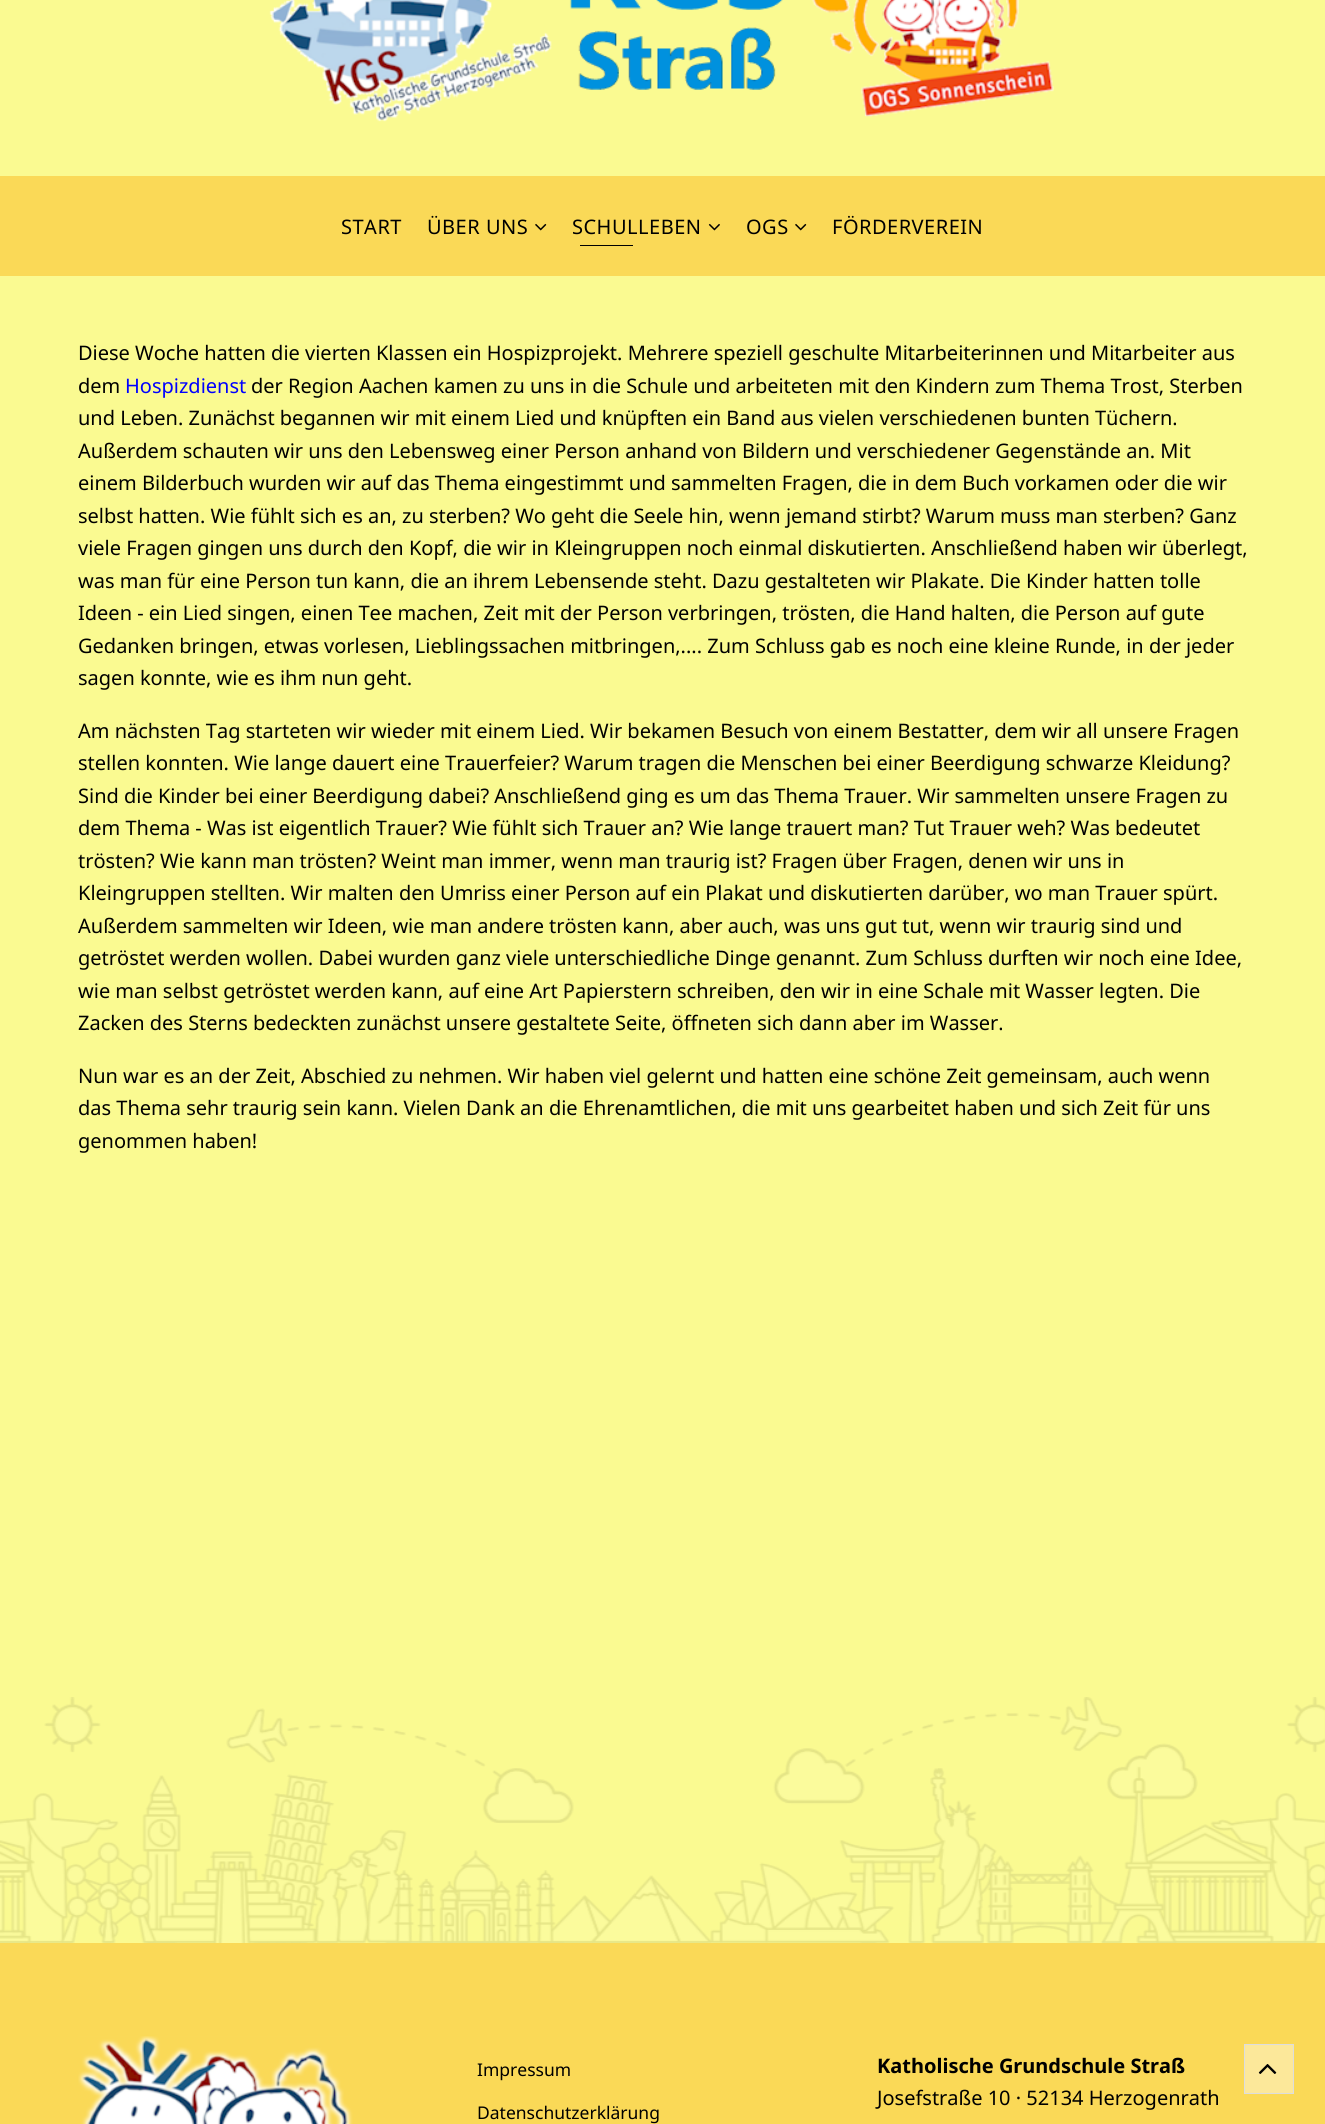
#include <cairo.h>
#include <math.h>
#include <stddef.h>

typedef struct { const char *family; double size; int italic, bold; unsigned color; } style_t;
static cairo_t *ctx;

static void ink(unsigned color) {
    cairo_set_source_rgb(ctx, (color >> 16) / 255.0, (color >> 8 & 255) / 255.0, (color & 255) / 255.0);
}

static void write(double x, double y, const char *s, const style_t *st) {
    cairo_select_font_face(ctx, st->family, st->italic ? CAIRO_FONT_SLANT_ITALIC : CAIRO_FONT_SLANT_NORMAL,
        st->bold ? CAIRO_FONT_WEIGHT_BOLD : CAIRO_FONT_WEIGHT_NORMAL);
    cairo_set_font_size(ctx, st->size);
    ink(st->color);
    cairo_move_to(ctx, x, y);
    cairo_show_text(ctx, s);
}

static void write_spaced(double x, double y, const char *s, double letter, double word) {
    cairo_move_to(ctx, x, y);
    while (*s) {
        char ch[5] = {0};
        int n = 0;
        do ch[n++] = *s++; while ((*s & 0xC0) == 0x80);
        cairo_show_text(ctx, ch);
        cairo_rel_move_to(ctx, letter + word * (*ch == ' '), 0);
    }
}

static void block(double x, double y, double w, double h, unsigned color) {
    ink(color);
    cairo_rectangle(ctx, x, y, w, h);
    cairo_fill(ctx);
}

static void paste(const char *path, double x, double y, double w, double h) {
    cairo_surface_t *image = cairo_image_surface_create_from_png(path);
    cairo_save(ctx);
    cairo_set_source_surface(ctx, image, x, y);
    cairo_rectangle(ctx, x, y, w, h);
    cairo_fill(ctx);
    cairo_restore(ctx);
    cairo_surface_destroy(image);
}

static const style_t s1 = {"Noto Sans", 20, 0, 0, 0x000000};
static const style_t s2 = {"Noto Sans", 20, 0, 0, 0x0000ff};
static const style_t s3 = {"Noto Sans", 17.5, 0, 0, 0x000000};
static const style_t s4 = {"Noto Sans", 20, 0, 1, 0x000000};

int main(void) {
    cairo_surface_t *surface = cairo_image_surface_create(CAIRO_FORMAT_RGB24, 1325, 2124);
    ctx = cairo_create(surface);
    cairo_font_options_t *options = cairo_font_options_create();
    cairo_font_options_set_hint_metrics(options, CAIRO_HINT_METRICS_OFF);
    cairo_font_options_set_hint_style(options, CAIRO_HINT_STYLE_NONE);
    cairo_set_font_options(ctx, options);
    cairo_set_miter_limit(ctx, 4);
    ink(0xfafa91);
    cairo_paint(ctx);
    paste("pic1.png", 269, 0, 785, 122);
    block(0, 176, 1325, 100, 0xfad957);
    cairo_select_font_face(ctx, "Noto Sans", CAIRO_FONT_SLANT_NORMAL, CAIRO_FONT_WEIGHT_NORMAL);
    cairo_set_font_size(ctx, 20);
    ink(0x000000);
    write_spaced(341, 234, "START", 0.5, 0);
    write_spaced(427, 234, "ÜBER UNS", 0.5, 0);
    paste("pic2.png", 535, 223, 12, 8);
    write_spaced(572, 234, "SCHULLEBEN", 0.5, 0);
    paste("pic3.png", 708, 223, 12, 8);
    block(580, 245, 53, 1, 0x000000);
    write_spaced(746, 234, "OGS", 0.5, 0);
    paste("pic2.png", 795, 223, 12, 8);
    write_spaced(832, 234, "FÖRDERVEREIN", 0.5, 0);
    write(78, 360, "Diese Woche hatten die vierten Klassen ein Hospizprojekt. Mehrere speziell geschulte Mitarbeiterinnen und Mitarbeiter aus", &s1);
    write(78, 393, "dem", &s1);
    write(125, 393, "Hospizdienst", &s2);
    write(251, 393, "der Region Aachen kamen zu uns in die Schule und arbeiteten mit den Kindern zum Thema Trost, Sterben", &s1);
    write(78, 425, "und Leben. Zunächst begannen wir mit einem Lied und knüpften ein Band aus vielen verschiedenen bunten Tüchern.", &s1);
    write(78, 458, "Außerdem schauten wir uns den Lebensweg einer Person anhand von Bildern und verschiedener Gegenstände an. Mit", &s1);
    write(78, 490, "einem Bilderbuch wurden wir auf das Thema eingestimmt und sammelten Fragen, die in dem Buch vorkamen oder die wir", &s1);
    write(78, 523, "selbst hatten. Wie fühlt sich es an, zu sterben? Wo geht die Seele hin, wenn jemand stirbt? Warum muss man sterben? Ganz", &s1);
    write(78, 555, "viele Fragen gingen uns durch den Kopf, die wir in Kleingruppen noch einmal diskutierten. Anschließend haben wir überlegt,", &s1);
    write(78, 588, "was man für eine Person tun kann, die an ihrem Lebensende steht. Dazu gestalteten wir Plakate. Die Kinder hatten tolle", &s1);
    write(78, 620, "Ideen - ein Lied singen, einen Tee machen, Zeit mit der Person verbringen, trösten, die Hand halten, die Person auf gute", &s1);
    write(78, 653, "Gedanken bringen, etwas vorlesen, Lieblingssachen mitbringen,.... Zum Schluss gab es noch eine kleine Runde, in der jeder", &s1);
    write(78, 685, "sagen konnte, wie es ihm nun geht.", &s1);
    write(78, 738, "Am nächsten Tag starteten wir wieder mit einem Lied. Wir bekamen Besuch von einem Bestatter, dem wir all unsere Fragen", &s1);
    write(78, 770, "stellen konnten. Wie lange dauert eine Trauerfeier? Warum tragen die Menschen bei einer Beerdigung schwarze Kleidung?", &s1);
    write(78, 803, "Sind die Kinder bei einer Beerdigung dabei? Anschließend ging es um das Thema Trauer. Wir sammelten unsere Fragen zu", &s1);
    write(78, 835, "dem Thema - Was ist eigentlich Trauer? Wie fühlt sich Trauer an? Wie lange trauert man? Tut Trauer weh? Was bedeutet", &s1);
    write(78, 868, "trösten? Wie kann man trösten? Weint man immer, wenn man traurig ist? Fragen über Fragen, denen wir uns in", &s1);
    write(78, 900, "Kleingruppen stellten. Wir malten den Umriss einer Person auf ein Plakat und diskutierten darüber, wo man Trauer spürt.", &s1);
    write(78, 933, "Außerdem sammelten wir Ideen, wie man andere trösten kann, aber auch, was uns gut tut, wenn wir traurig sind und", &s1);
    write(78, 965, "getröstet werden wollen. Dabei wurden ganz viele unterschiedliche Dinge genannt. Zum Schluss durften wir noch eine Idee,", &s1);
    write(78, 998, "wie man selbst getröstet werden kann, auf eine Art Papierstern schreiben, den wir in eine Schale mit Wasser legten. Die", &s1);
    write(78, 1030, "Zacken des Sterns bedeckten zunächst unsere gestaltete Seite, öffneten sich dann aber im Wasser.", &s1);
    write(78, 1083, "Nun war es an der Zeit, Abschied zu nehmen. Wir haben viel gelernt und hatten eine schöne Zeit gemeinsam, auch wenn", &s1);
    write(78, 1115, "das Thema sehr traurig sein kann. Vielen Dank an die Ehrenamtlichen, die mit uns gearbeitet haben und sich Zeit für uns", &s1);
    write(78, 1148, "genommen haben!", &s1);
    block(0, 1943, 1325, 181, 0xfad957);
    paste("pic4.png", 0, 1697, 1325, 246);
    paste("pic5.png", 78, 2036, 275, 88);
    write(477, 2076, "Impressum", &s3);
    write(477, 2119, "Datenschutzerklärung", &s3);
    write(877, 2073, "Katholische Grundschule Straß", &s4);
    write(877, 2105, "Josefstraße 10 · 52134 Herzogenrath", &s1);
    ink(0xfce89a);
    cairo_rectangle(ctx, 1244.5, 2044.5, 49, 49);
    cairo_fill_preserve(ctx);
    ink(0xdddddd);
    cairo_set_line_width(ctx, 1);
    cairo_stroke(ctx);
    paste("pic6.png", 1258, 2064, 19, 10);
    cairo_surface_write_to_png(surface, "screenshot.png");
    cairo_font_options_destroy(options);
    cairo_destroy(ctx);
    cairo_surface_destroy(surface);
    return 0;
}
